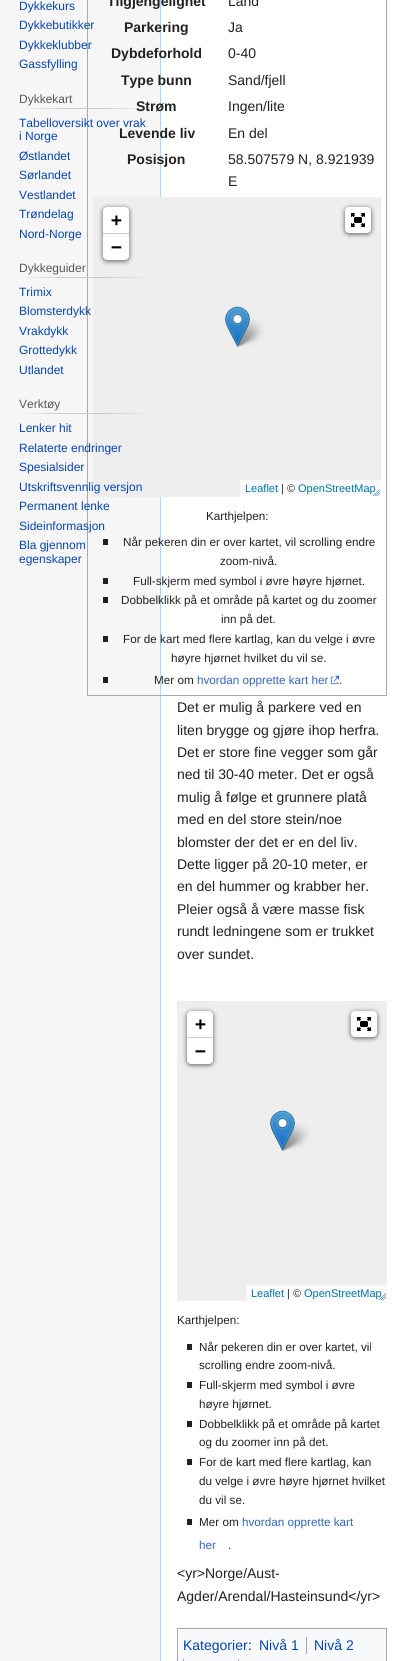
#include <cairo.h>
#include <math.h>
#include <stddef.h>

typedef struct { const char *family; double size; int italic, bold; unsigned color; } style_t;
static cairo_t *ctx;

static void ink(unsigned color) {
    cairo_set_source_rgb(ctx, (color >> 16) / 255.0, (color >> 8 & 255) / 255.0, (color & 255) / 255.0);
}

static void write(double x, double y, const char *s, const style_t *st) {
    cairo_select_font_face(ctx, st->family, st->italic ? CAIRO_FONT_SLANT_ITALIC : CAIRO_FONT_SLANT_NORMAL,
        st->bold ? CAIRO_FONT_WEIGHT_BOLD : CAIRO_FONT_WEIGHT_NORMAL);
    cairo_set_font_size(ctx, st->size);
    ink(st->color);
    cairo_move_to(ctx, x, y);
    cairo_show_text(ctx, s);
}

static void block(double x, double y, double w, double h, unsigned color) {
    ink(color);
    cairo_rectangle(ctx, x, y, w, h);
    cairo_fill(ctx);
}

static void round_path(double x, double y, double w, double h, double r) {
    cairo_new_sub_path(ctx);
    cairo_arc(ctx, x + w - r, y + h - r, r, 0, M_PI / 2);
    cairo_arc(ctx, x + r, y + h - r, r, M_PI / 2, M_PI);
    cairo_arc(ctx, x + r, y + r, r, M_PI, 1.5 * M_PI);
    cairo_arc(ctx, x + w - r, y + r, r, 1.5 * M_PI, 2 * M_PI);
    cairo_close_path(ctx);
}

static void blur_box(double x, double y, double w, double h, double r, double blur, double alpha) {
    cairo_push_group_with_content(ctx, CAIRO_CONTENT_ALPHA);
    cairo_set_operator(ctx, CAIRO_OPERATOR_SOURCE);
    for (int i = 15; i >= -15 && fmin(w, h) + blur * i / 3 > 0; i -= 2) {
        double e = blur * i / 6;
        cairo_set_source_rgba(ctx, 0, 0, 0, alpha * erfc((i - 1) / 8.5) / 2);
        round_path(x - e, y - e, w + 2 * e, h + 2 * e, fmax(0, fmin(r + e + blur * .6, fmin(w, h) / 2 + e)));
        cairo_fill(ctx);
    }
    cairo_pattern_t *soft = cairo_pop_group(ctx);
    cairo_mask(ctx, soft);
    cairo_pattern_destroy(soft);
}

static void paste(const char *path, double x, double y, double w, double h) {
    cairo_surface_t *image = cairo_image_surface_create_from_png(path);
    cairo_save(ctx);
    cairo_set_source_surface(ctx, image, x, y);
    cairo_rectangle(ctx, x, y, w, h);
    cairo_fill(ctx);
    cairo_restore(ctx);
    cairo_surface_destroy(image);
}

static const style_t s1 = {"Liberation Sans", 12, 0, 0, 0x0645ad};
static const style_t s2 = {"Liberation Sans", 14, 0, 1, 0x202122};
static const style_t s3 = {"Liberation Sans", 12, 0, 0, 0x54595d};
static const style_t s4 = {"Liberation Sans", 14, 0, 0, 0x202122};
static const style_t s5 = {"DejaVu Sans Mono", 18, 0, 1, 0x000000};
static const style_t s6 = {"Liberation Sans", 11, 0, 0, 0x0078a8};
static const style_t s7 = {"Liberation Sans", 11, 0, 0, 0x333333};
static const style_t s8 = {"Liberation Sans", 11.7, 0, 0, 0x202122};
static const style_t s9 = {"Liberation Sans", 11.7, 0, 0, 0x3366bb};
static const style_t s10 = {"Liberation Sans", 14, 0, 0, 0x0645ad};

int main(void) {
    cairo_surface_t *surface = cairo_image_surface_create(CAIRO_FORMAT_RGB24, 403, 1661);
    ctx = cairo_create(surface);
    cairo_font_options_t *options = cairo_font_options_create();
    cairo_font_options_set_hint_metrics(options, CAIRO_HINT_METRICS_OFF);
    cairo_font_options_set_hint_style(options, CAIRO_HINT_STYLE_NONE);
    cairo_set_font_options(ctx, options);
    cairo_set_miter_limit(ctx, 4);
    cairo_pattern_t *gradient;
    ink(0xf6f6f6);
    cairo_paint(ctx);
    write(19, 10, "Dykkekurs", &s1);
    block(161, 0, 242, 1661, 0xffffff);
    block(160, 0, 1, 1661, 0xa7d7f9);
    cairo_rectangle(ctx, 87.5, -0.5, 299, 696);
    ink(0xaaaaaa);
    cairo_set_line_width(ctx, 1);
    cairo_stroke(ctx);
    write(19, 29, "Dykkebutikker", &s1);
    write(19, 49, "Dykkeklubber", &s1);
    write(19, 68, "Gassfylling", &s1);
    write(136, 111, "Strøm", &s2);
    gradient = cairo_pattern_create_linear(19, 109, 150, 109);
    cairo_pattern_add_color_stop_rgba(gradient, 0, 0.784, 0.8, 0.82, 0);
    cairo_pattern_add_color_stop_rgba(gradient, 0.33, 0.784, 0.8, 0.82, 1);
    cairo_pattern_add_color_stop_rgba(gradient, 0.66, 0.784, 0.8, 0.82, 1);
    cairo_pattern_add_color_stop_rgba(gradient, 1, 0.784, 0.8, 0.82, 0);
    cairo_set_source(ctx, gradient);
    cairo_pattern_destroy(gradient);
    cairo_rectangle(ctx, 19, 108, 131, 1);
    cairo_fill(ctx);
    write(19, 103, "Dykkekart", &s3);
    write(19, 127, "Tabelloversikt over vrak", &s1);
    write(19, 140, "i Norge", &s1);
    write(19, 160, "Østlandet", &s1);
    write(19, 179, "Sørlandet", &s1);
    write(19, 199, "Vestlandet", &s1);
    write(19, 218, "Trøndelag", &s1);
    write(19, 238, "Nord-Norge", &s1);
    block(93, 197, 288, 300, 0xeeeeee);
    gradient = cairo_pattern_create_linear(19, 278, 150, 278);
    cairo_pattern_add_color_stop_rgba(gradient, 0, 0.784, 0.8, 0.82, 0);
    cairo_pattern_add_color_stop_rgba(gradient, 0.33, 0.784, 0.8, 0.82, 1);
    cairo_pattern_add_color_stop_rgba(gradient, 0.66, 0.784, 0.8, 0.82, 1);
    cairo_pattern_add_color_stop_rgba(gradient, 1, 0.784, 0.8, 0.82, 0);
    cairo_set_source(ctx, gradient);
    cairo_pattern_destroy(gradient);
    cairo_rectangle(ctx, 19, 277, 131, 1);
    cairo_fill(ctx);
    write(19, 272, "Dykkeguider", &s3);
    write(19, 296, "Trimix", &s1);
    write(19, 315, "Blomsterdykk", &s1);
    write(19, 335, "Vrakdykk", &s1);
    write(19, 354, "Grottedykk", &s1);
    write(19, 374, "Utlandet", &s1);
    gradient = cairo_pattern_create_linear(19, 414, 150, 414);
    cairo_pattern_add_color_stop_rgba(gradient, 0, 0.784, 0.8, 0.82, 0);
    cairo_pattern_add_color_stop_rgba(gradient, 0.33, 0.784, 0.8, 0.82, 1);
    cairo_pattern_add_color_stop_rgba(gradient, 0.66, 0.784, 0.8, 0.82, 1);
    cairo_pattern_add_color_stop_rgba(gradient, 1, 0.784, 0.8, 0.82, 0);
    cairo_set_source(ctx, gradient);
    cairo_pattern_destroy(gradient);
    cairo_rectangle(ctx, 19, 413, 131, 1);
    cairo_fill(ctx);
    write(19, 408, "Verktøy", &s3);
    write(19, 432, "Lenker hit", &s1);
    write(19, 452, "Relaterte endringer", &s1);
    write(19, 471, "Spesialsider", &s1);
    write(19, 491, "Utskriftsvennlig versjon", &s1);
    write(19, 510, "Permanent lenke", &s1);
    write(19, 530, "Sideinformasjon", &s1);
    write(19, 549, "Bla gjennom", &s1);
    write(19, 563, "egenskaper", &s1);
    write(107, 6, "Tilgjengelighet", &s2);
    write(228, 6, "Land", &s4);
    write(124, 32, "Parkering", &s2);
    write(228, 32, "Ja", &s4);
    write(111, 58, "Dybdeforhold", &s2);
    write(228, 58, "0-40", &s4);
    write(121, 85, "Type bunn", &s2);
    write(228, 85, "Sand/fjell", &s4);
    write(228, 111, "Ingen/lite", &s4);
    write(119, 138, "Levende liv", &s2);
    write(228, 138, "En del", &s4);
    write(127, 164, "Posisjon", &s2);
    write(228, 164, "58.507579 N, 8.921939", &s4);
    write(228, 186, "E", &s4);
    ink(0x000000);
    blur_box(103, 208, 26, 53, 4, 2.5, 0.65);
    ink(0xffffff);
    cairo_new_path(ctx);
    cairo_move_to(ctx, 107, 207);
    cairo_line_to(ctx, 125, 207);
    cairo_curve_to(ctx, 127, 207, 129, 209, 129, 211);
    cairo_line_to(ctx, 129, 234);
    cairo_line_to(ctx, 103, 234);
    cairo_line_to(ctx, 103, 211);
    cairo_curve_to(ctx, 103, 209, 105, 207, 107, 207);
    cairo_close_path(ctx);
    cairo_fill(ctx);
    block(103, 233, 26, 1, 0xcccccc);
    write(111, 226, "+", &s5);
    ink(0xffffff);
    cairo_new_path(ctx);
    cairo_move_to(ctx, 103, 234);
    cairo_line_to(ctx, 129, 234);
    cairo_line_to(ctx, 129, 256);
    cairo_curve_to(ctx, 129, 258, 127, 260, 125, 260);
    cairo_line_to(ctx, 107, 260);
    cairo_curve_to(ctx, 105, 260, 103, 258, 103, 256);
    cairo_close_path(ctx);
    cairo_fill(ctx);
    write(111, 253, "−", &s5);
    ink(0x000000);
    blur_box(345, 208, 26, 26, 4, 2.5, 0.65);
    ink(0xffffff);
    round_path(345, 207, 26, 26, 4);
    cairo_fill(ctx);
    paste("pic1.png", 351, 213, 14, 14);
    block(240, 480, 141, 17, 0xfafafa);
    write(245, 492, "Leaflet", &s6);
    write(281, 492, "| ©", &s7);
    write(298, 492, "OpenStreetMap", &s6);
    paste("pic3.png", 235, 319, 29, 28);
    paste("pic2.png", 225, 306, 25, 41);
    paste("pic4.png", 373, 489, 7, 7);
    write(206, 520, "Karthjelpen:", &s8);
    block(103, 539, 5, 6, 0x202122);
    write(123, 546, "Når pekeren din er over kartet, vil scrolling endre", &s8);
    write(220, 565, "zoom-nivå.", &s8);
    block(103, 578, 5, 6, 0x202122);
    write(133, 585, "Full-skjerm med symbol i øvre høyre hjørnet.", &s8);
    block(103, 597, 5, 6, 0x202122);
    write(121, 604, "Dobbelklikk på et område på kartet og du zoomer", &s8);
    write(221, 623, "inn på det.", &s8);
    block(103, 636, 5, 6, 0x202122);
    write(123, 643, "For de kart med flere kartlag, kan du velge i øvre", &s8);
    write(171, 662, "høyre hjørnet hvilket du vil se.", &s8);
    block(103, 677, 5, 6, 0x202122);
    write(154, 684, "Mer om", &s8);
    write(197, 684, "hvordan opprette kart her", &s9);
    paste("pic5.png", 330, 675, 9, 10);
    write(339, 684, ".", &s8);
    write(177, 712, "Det er mulig å parkere ved en", &s4);
    write(177, 735, "liten brygge og gjøre ihop herfra.", &s4);
    write(177, 757, "Det er store fine vegger som går", &s4);
    write(177, 779, "ned til 30-40 meter. Det er også", &s4);
    write(177, 802, "mulig å følge et grunnere platå", &s4);
    write(177, 824, "med en del store stein/noe", &s4);
    write(177, 847, "blomster der det er en del liv.", &s4);
    write(177, 869, "Dette ligger på 20-10 meter, er", &s4);
    write(177, 891, "en del hummer og krabber her.", &s4);
    write(177, 914, "Pleier også å være masse fisk", &s4);
    write(177, 936, "rundt ledningene som er trukket", &s4);
    write(177, 959, "over sundet.", &s4);
    block(177, 1001, 210, 300, 0xeeeeee);
    ink(0x000000);
    blur_box(187, 1012, 26, 53, 4, 2.5, 0.65);
    ink(0xffffff);
    cairo_new_path(ctx);
    cairo_move_to(ctx, 191, 1011);
    cairo_line_to(ctx, 209, 1011);
    cairo_curve_to(ctx, 211, 1011, 213, 1013, 213, 1015);
    cairo_line_to(ctx, 213, 1038);
    cairo_line_to(ctx, 187, 1038);
    cairo_line_to(ctx, 187, 1015);
    cairo_curve_to(ctx, 187, 1013, 189, 1011, 191, 1011);
    cairo_close_path(ctx);
    cairo_fill(ctx);
    block(187, 1037, 26, 1, 0xcccccc);
    write(195, 1030, "+", &s5);
    ink(0xffffff);
    cairo_new_path(ctx);
    cairo_move_to(ctx, 187, 1038);
    cairo_line_to(ctx, 213, 1038);
    cairo_line_to(ctx, 213, 1060);
    cairo_curve_to(ctx, 213, 1062, 211, 1064, 209, 1064);
    cairo_line_to(ctx, 191, 1064);
    cairo_curve_to(ctx, 189, 1064, 187, 1062, 187, 1060);
    cairo_close_path(ctx);
    cairo_fill(ctx);
    write(195, 1057, "−", &s5);
    ink(0x000000);
    blur_box(351, 1012, 26, 26, 4, 2.5, 0.65);
    ink(0xffffff);
    round_path(351, 1011, 26, 26, 4);
    cairo_fill(ctx);
    paste("pic1.png", 357, 1017, 14, 14);
    block(246, 1285, 141, 16, 0xfafafa);
    write(251, 1297, "Leaflet", &s6);
    write(287, 1297, "| ©", &s7);
    write(304, 1297, "OpenStreetMap", &s6);
    paste("pic3.png", 280, 1123, 29, 28);
    paste("pic2.png", 270, 1110, 25, 41);
    paste("pic6.png", 379, 1293, 7, 7);
    write(177, 1324, "Karthjelpen:", &s8);
    block(187, 1344, 5, 6, 0x202122);
    write(199, 1351, "Når pekeren din er over kartet, vil", &s8);
    write(199, 1369, "scrolling endre zoom-nivå.", &s8);
    block(187, 1382, 5, 6, 0x202122);
    write(199, 1389, "Full-skjerm med symbol i øvre", &s8);
    write(199, 1408, "høyre hjørnet.", &s8);
    block(187, 1421, 5, 6, 0x202122);
    write(199, 1428, "Dobbelklikk på et område på kartet", &s8);
    write(199, 1446, "og du zoomer inn på det.", &s8);
    block(187, 1459, 5, 6, 0x202122);
    write(199, 1466, "For de kart med flere kartlag, kan", &s8);
    write(199, 1485, "du velge i øvre høyre hjørnet hvilket", &s8);
    write(199, 1504, "du vil se.", &s8);
    block(187, 1519, 5, 6, 0x202122);
    write(199, 1526, "Mer om", &s8);
    write(242, 1526, "hvordan opprette kart", &s9);
    write(199, 1549, "her", &s9);
    write(228, 1549, ".", &s8);
    write(177, 1578, "<yr>Norge/Aust-", &s4);
    write(177, 1601, "Agder/Arendal/Hasteinsund</yr>", &s4);
    ink(0xf8f9fa);
    cairo_rectangle(ctx, 177.5, 1628.5, 209, 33);
    cairo_fill_preserve(ctx);
    ink(0xa2a9b1);
    cairo_stroke(ctx);
    write(183, 1650, "Kategorier", &s10);
    write(248, 1650, ":", &s4);
    write(259, 1650, "Nivå 1", &s10);
    block(306, 1637, 1, 17, 0xa2a9b1);
    write(314, 1650, "Nivå 2", &s10);
    block(183, 1659, 1, 2, 0xa2a9b1);
    block(238, 1659, 1, 2, 0xa2a9b1);
    cairo_surface_write_to_png(surface, "screenshot.png");
    cairo_font_options_destroy(options);
    cairo_destroy(ctx);
    cairo_surface_destroy(surface);
    return 0;
}
